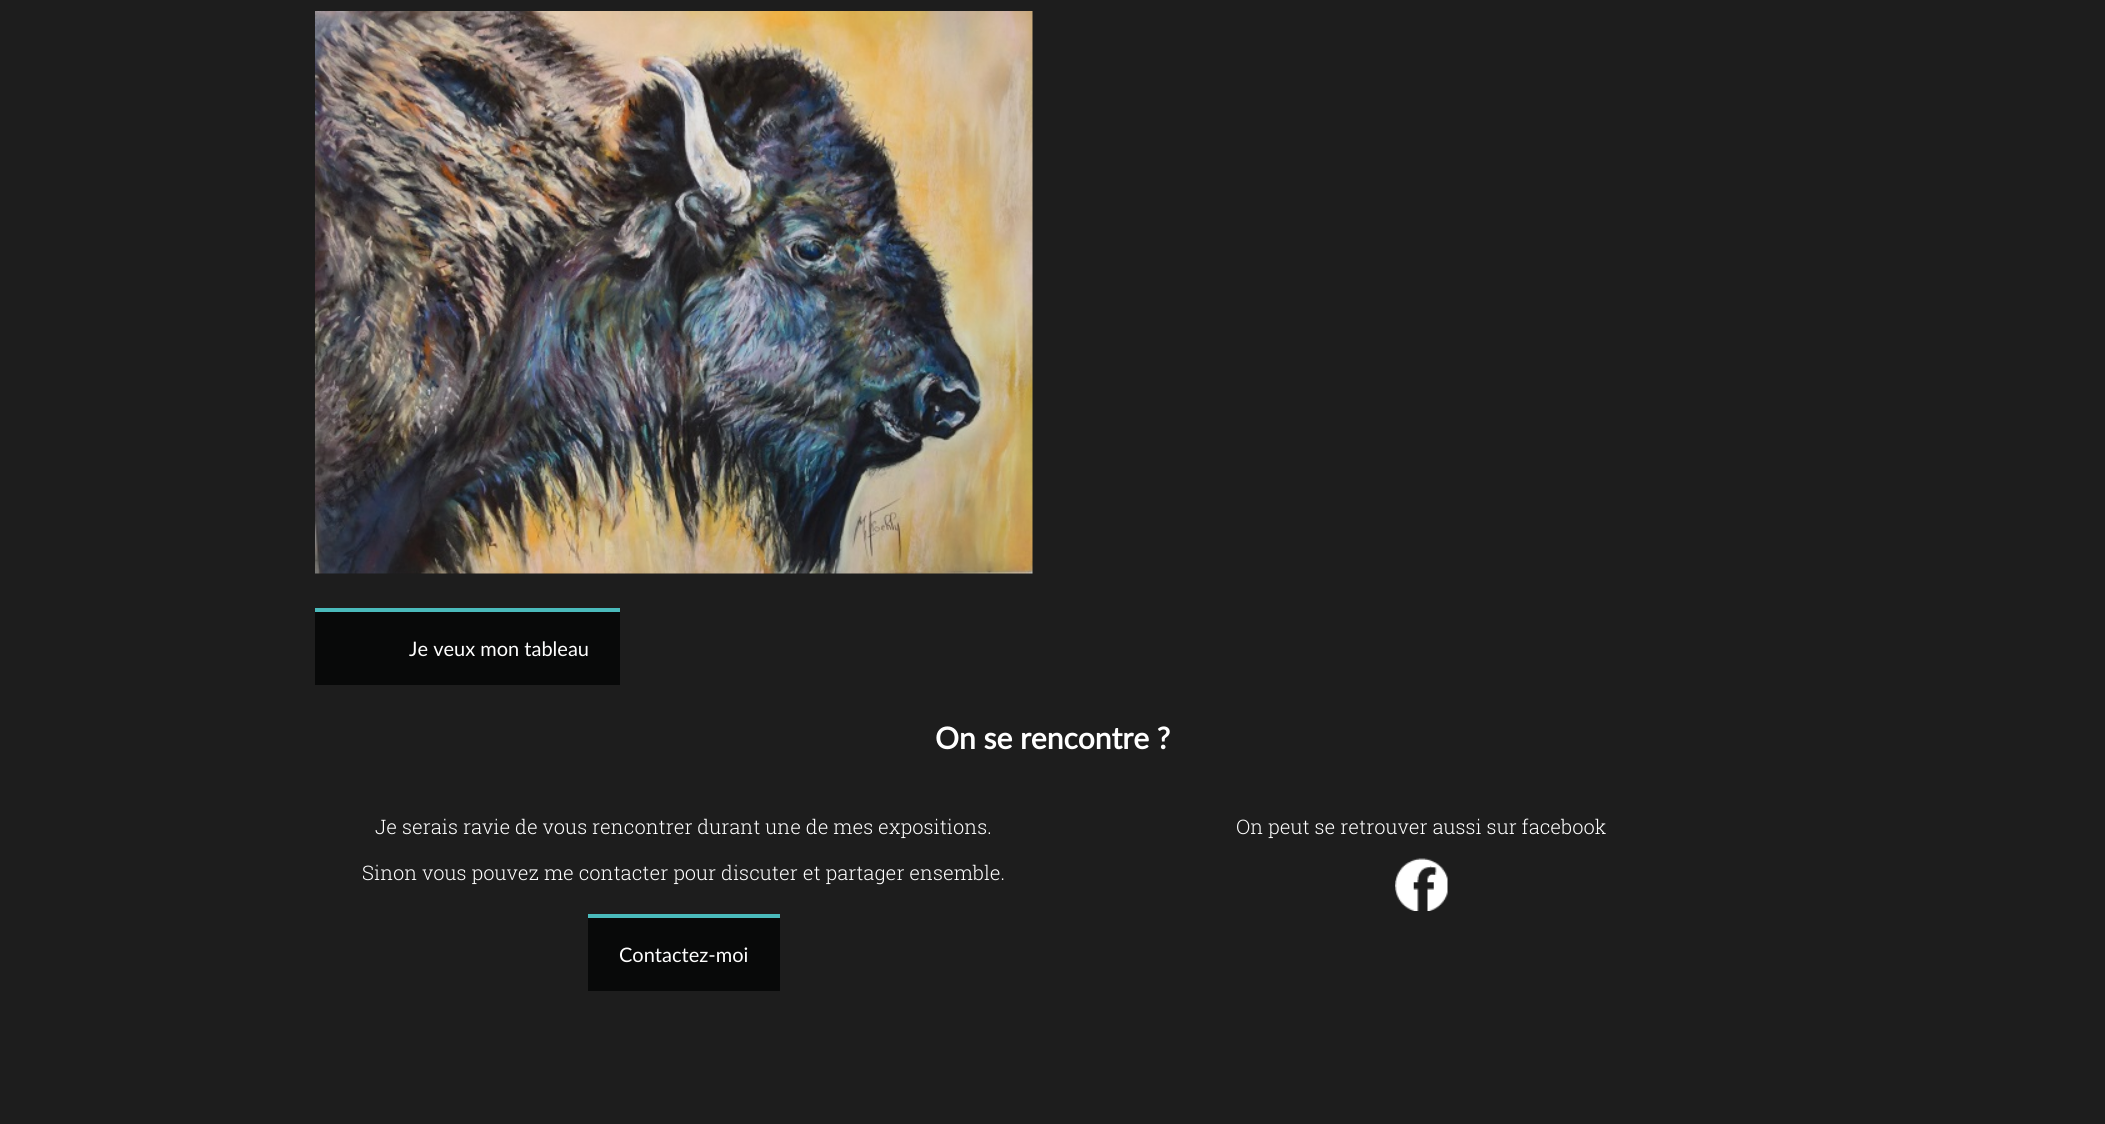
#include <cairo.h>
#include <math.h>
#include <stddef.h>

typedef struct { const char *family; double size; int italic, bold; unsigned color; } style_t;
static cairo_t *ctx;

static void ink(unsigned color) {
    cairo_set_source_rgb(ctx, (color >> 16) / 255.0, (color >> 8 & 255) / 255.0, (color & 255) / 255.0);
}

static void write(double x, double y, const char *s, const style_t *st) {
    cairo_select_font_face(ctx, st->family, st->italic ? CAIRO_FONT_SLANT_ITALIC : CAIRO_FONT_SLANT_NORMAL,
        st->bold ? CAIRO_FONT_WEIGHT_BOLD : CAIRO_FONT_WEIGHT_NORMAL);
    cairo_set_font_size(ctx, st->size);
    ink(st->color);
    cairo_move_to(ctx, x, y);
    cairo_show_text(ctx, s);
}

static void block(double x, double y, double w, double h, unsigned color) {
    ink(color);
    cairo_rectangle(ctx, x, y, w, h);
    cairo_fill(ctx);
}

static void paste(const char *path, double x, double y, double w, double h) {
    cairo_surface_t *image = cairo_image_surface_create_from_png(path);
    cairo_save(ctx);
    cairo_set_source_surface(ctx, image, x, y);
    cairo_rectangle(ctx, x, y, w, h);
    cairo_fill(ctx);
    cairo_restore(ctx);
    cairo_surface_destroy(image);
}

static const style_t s1 = {"Lato", 20, 0, 0, 0xffffff};
static const style_t s2 = {"Lato", 30, 0, 1, 0xffffff};
static const style_t s3 = {"Roboto Slab Light", 20, 0, 0, 0xffffff};

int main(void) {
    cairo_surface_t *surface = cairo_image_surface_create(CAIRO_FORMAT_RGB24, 2105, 1124);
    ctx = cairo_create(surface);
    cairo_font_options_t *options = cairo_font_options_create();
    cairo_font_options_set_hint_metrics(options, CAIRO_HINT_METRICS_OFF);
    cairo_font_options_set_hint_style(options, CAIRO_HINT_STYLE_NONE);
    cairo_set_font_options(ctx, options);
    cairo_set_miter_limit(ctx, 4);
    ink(0x1d1d1d);
    cairo_paint(ctx);
    paste("pic1.png", 315, 11, 718, 563);
    block(315, 608, 305, 4, 0x4ababb);
    block(315, 612, 305, 73, 0x080909);
    write(409, 656, "Je veux mon tableau", &s1);
    write(935, 749, "On se rencontre ?", &s2);
    write(375, 834, "Je serais ravie de vous rencontrer durant une de mes expositions.", &s3);
    write(362, 880, "Sinon vous pouvez me contacter pour discuter et partager ensemble.", &s3);
    block(588, 918, 192, 73, 0x080909);
    write(619, 962, "Contactez-moi", &s1);
    block(588, 914, 192, 4, 0x4ababb);
    write(1236, 834, "On peut se retrouver aussi sur facebook", &s3);
    paste("pic2.png", 1395, 858, 53, 53);
    cairo_surface_write_to_png(surface, "screenshot.png");
    cairo_font_options_destroy(options);
    cairo_destroy(ctx);
    cairo_surface_destroy(surface);
    return 0;
}
